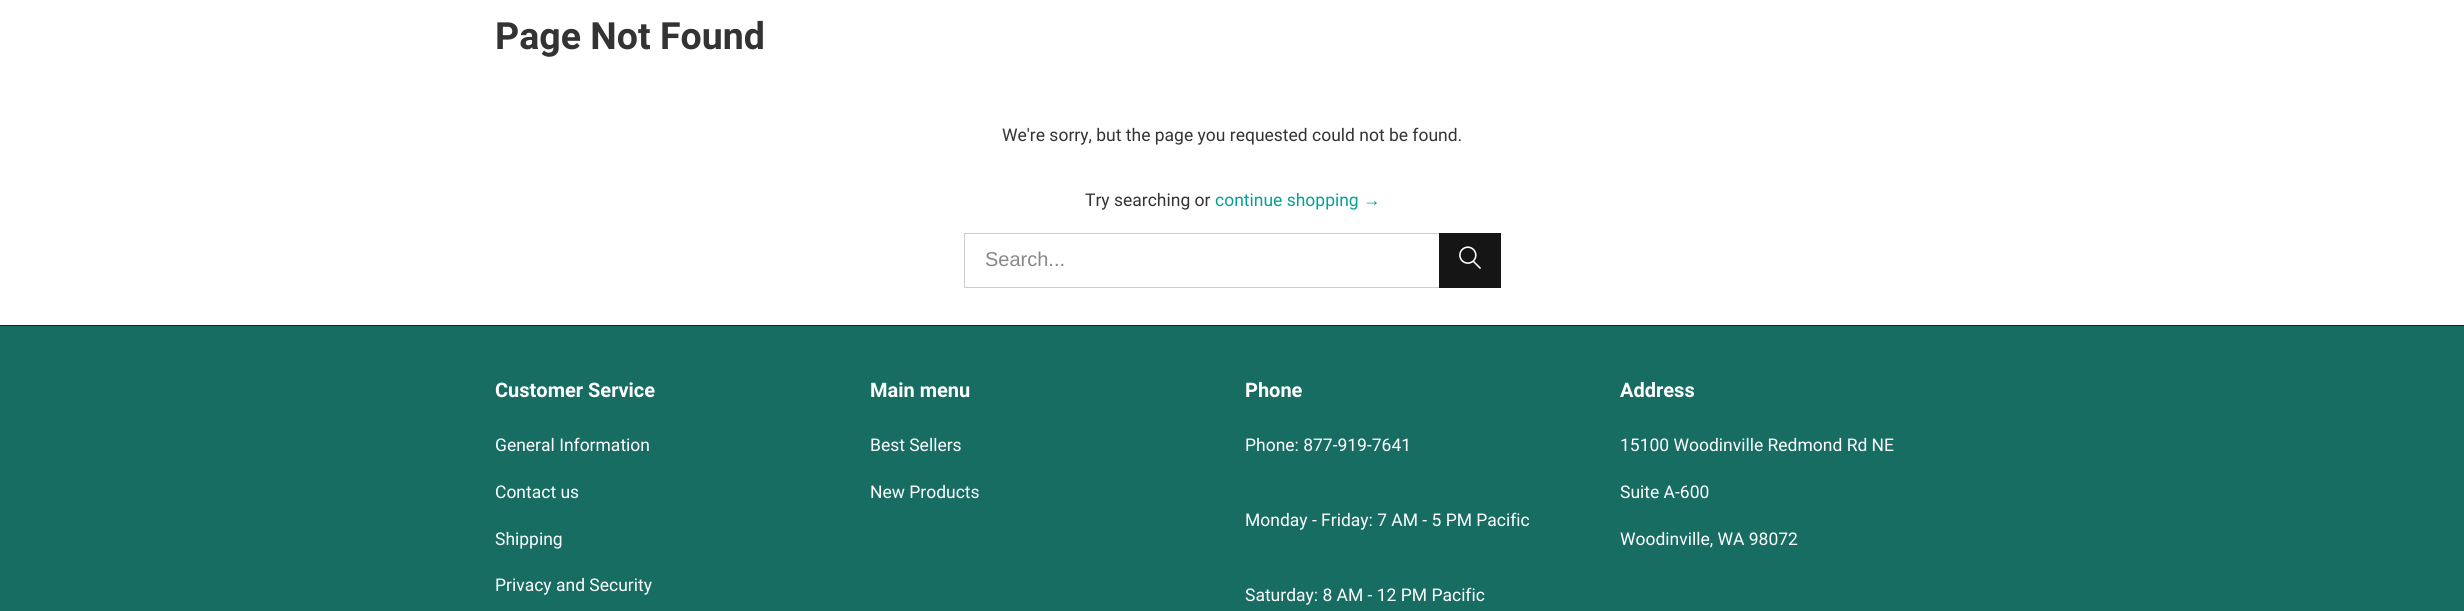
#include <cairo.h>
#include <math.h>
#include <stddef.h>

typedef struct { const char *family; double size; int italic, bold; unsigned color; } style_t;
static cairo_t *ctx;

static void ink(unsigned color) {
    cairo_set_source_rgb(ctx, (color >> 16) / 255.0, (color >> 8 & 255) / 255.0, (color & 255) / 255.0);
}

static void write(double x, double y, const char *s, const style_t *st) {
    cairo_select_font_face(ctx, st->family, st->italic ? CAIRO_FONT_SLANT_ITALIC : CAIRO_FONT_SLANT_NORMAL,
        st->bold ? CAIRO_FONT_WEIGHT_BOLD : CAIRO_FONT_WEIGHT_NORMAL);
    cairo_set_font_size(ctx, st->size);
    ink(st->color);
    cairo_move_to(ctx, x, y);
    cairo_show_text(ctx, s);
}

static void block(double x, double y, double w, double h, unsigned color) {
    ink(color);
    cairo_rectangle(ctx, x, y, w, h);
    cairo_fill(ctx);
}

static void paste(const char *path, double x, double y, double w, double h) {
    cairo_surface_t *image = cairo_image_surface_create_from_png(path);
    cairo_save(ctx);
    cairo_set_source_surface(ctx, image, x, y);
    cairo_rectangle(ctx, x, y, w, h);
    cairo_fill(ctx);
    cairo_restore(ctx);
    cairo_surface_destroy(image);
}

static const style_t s1 = {"Roboto", 37.5, 0, 1, 0x333333};
static const style_t s2 = {"Roboto", 17.5, 0, 0, 0x333333};
static const style_t s3 = {"Roboto", 17.5, 0, 0, 0x03a196};
static const style_t s4 = {"Liberation Sans", 17.5, 0, 0, 0x03a196};
static const style_t s5 = {"Liberation Sans", 20, 0, 0, 0x888888};
static const style_t s6 = {"Roboto", 20, 0, 1, 0xffffff};
static const style_t s7 = {"Roboto", 17.5, 0, 0, 0xffffff};

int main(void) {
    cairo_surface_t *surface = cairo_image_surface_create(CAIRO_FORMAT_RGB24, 2464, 611);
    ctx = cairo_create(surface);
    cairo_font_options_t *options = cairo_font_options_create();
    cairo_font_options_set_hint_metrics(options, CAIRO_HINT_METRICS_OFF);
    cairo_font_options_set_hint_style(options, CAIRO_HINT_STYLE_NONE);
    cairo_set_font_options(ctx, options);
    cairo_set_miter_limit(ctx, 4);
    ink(0xffffff);
    cairo_paint(ctx);
    write(495, 49, "Page Not Found", &s1);
    write(1002, 141, "We're sorry, but the page you requested could not be found.", &s2);
    write(1085, 206, "Try searching or", &s2);
    write(1215, 206, "continue shopping", &s3);
    write(1363, 206, "→", &s4);
    cairo_rectangle(ctx, 964.5, 233.5, 536, 54);
    ink(0xcccccc);
    cairo_set_line_width(ctx, 1);
    cairo_stroke(ctx);
    write(985, 266, "Search...", &s5);
    block(1439, 233, 62, 55, 0x151515);
    paste("pic1.png", 1459, 246, 22, 23);
    block(0, 326, 2464, 285, 0x186d63);
    block(0, 325, 2464, 1, 0x1b1f23);
    write(495, 397, "Customer Service", &s6);
    write(495, 451, "General Information", &s7);
    write(495, 498, "Contact us", &s7);
    write(495, 545, "Shipping", &s7);
    write(495, 591, "Privacy and Security", &s7);
    write(870, 397, "Main menu", &s6);
    write(870, 451, "Best Sellers", &s7);
    write(870, 498, "New Products", &s7);
    write(1245, 397, "Phone", &s6);
    write(1245, 451, "Phone: 877-919-7641", &s7);
    write(1245, 526, "Monday - Friday: 7 AM - 5 PM Pacific", &s7);
    write(1245, 601, "Saturday: 8 AM - 12 PM Pacific", &s7);
    write(1620, 397, "Address", &s6);
    write(1620, 451, "15100 Woodinville Redmond Rd NE", &s7);
    write(1620, 498, "Suite A-600", &s7);
    write(1620, 545, "Woodinville, WA 98072", &s7);
    cairo_surface_write_to_png(surface, "screenshot.png");
    cairo_font_options_destroy(options);
    cairo_destroy(ctx);
    cairo_surface_destroy(surface);
    return 0;
}
